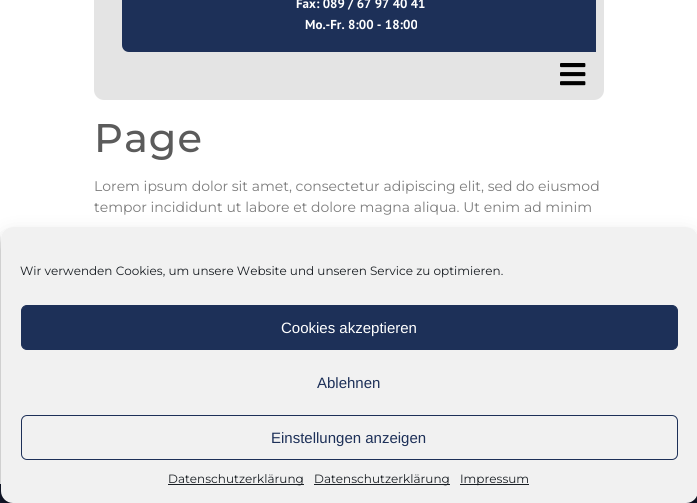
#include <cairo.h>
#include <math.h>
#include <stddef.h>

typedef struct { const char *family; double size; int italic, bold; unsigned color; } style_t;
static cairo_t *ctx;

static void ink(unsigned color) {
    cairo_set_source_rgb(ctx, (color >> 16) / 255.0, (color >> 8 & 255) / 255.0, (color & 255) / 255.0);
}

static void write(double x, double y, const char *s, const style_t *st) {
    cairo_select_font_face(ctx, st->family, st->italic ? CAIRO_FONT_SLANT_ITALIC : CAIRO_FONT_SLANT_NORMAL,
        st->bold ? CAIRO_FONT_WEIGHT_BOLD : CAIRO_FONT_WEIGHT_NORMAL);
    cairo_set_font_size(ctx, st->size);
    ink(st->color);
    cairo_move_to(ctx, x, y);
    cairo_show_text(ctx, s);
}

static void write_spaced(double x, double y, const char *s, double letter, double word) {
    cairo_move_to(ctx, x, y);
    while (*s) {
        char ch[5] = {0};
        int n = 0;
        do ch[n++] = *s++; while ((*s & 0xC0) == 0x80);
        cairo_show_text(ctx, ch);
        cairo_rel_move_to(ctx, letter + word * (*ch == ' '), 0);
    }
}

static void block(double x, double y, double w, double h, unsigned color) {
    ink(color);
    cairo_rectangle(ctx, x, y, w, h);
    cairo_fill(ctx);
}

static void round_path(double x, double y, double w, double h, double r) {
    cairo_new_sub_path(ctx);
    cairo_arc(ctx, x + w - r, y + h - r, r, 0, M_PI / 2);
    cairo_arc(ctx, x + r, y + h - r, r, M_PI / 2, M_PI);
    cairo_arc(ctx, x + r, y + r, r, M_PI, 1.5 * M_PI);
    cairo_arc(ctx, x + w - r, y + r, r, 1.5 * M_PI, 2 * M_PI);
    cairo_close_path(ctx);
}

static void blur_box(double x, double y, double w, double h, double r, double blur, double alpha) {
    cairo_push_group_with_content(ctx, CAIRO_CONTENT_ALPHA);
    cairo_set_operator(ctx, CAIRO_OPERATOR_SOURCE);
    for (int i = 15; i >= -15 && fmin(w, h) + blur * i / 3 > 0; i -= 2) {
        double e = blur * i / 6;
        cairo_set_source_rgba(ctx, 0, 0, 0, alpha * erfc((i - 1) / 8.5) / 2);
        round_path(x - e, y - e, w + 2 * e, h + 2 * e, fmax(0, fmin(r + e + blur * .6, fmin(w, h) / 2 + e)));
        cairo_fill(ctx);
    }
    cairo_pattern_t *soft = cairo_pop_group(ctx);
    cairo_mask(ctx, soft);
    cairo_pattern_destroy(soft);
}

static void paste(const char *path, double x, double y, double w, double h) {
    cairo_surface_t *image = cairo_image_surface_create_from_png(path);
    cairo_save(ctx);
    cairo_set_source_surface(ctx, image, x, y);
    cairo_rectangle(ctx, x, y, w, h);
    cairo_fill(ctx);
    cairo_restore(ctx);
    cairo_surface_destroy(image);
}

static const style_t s1 = {"PT Sans", 13, 0, 1, 0xffffff};
static const style_t s2 = {"Montserrat", 14, 0, 0, 0x7d7d7d};
static const style_t s3 = {"Montserrat", 12, 0, 0, 0x191e23};
static const style_t s4 = {"Liberation Sans", 15, 0, 0, 0xffffff};
static const style_t s5 = {"Liberation Sans", 15, 0, 0, 0x1d3058};

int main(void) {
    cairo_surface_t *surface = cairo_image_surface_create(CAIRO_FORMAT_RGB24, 697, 503);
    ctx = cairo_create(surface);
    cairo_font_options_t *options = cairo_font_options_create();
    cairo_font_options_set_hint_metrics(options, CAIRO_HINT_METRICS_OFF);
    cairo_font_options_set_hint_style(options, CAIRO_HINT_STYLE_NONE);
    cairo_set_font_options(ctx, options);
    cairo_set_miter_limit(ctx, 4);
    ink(0xffffff);
    cairo_paint(ctx);
    ink(0xe4e4e4);
    cairo_new_path(ctx);
    cairo_move_to(ctx, 94, -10);
    cairo_line_to(ctx, 604, -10);
    cairo_line_to(ctx, 604, 90);
    cairo_curve_to(ctx, 604, 95.5, 599.5, 100, 594, 100);
    cairo_line_to(ctx, 104, 100);
    cairo_curve_to(ctx, 98.5, 100, 94, 95.5, 94, 90);
    cairo_close_path(ctx);
    cairo_fill(ctx);
    ink(0x1d3058);
    cairo_new_path(ctx);
    cairo_move_to(ctx, 122, -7);
    cairo_line_to(ctx, 596, -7);
    cairo_line_to(ctx, 596, 52);
    cairo_line_to(ctx, 129, 52);
    cairo_curve_to(ctx, 125, 52, 122, 49, 122, 45);
    cairo_close_path(ctx);
    cairo_fill(ctx);
    write(296, 8, "Fax: 089 / 67 97 40 41", &s1);
    write(305, 29, "Mo.-Fr. 8:00 - 18:00", &s1);
    paste("pic1.png", 560, 63, 26, 23);
    cairo_select_font_face(ctx, "Montserrat Medium", CAIRO_FONT_SLANT_NORMAL, CAIRO_FONT_WEIGHT_NORMAL);
    cairo_set_font_size(ctx, 40);
    ink(0x5b5b5b);
    write_spaced(94, 152, "Page", 1, 0);
    write(94, 191, "Lorem ipsum dolor sit amet, consectetur adipiscing elit, sed do eiusmod", &s2);
    write(94, 212, "tempor incididunt ut labore et dolore magna aliqua. Ut enim ad minim", &s2);
    block(0, 484, 697, 19, 0x13182c);
    cairo_save(ctx);
    cairo_set_fill_rule(ctx, CAIRO_FILL_RULE_EVEN_ODD);
    cairo_new_path(ctx);
    cairo_move_to(ctx, 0, 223);
    cairo_line_to(ctx, 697, 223);
    cairo_line_to(ctx, 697, 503);
    cairo_line_to(ctx, 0, 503);
    cairo_close_path(ctx);
    cairo_move_to(ctx, 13, 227);
    cairo_line_to(ctx, 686, 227);
    cairo_curve_to(ctx, 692.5, 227, 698, 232.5, 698, 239);
    cairo_line_to(ctx, 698, 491);
    cairo_curve_to(ctx, 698, 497.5, 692.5, 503, 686, 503);
    cairo_line_to(ctx, 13, 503);
    cairo_curve_to(ctx, 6.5, 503, 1, 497.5, 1, 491);
    cairo_line_to(ctx, 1, 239);
    cairo_curve_to(ctx, 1, 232.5, 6.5, 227, 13, 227);
    cairo_close_path(ctx);
    cairo_clip(ctx);
    ink(0x000000);
    blur_box(1, 233, 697, 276, 12, 3, 0.23);
    cairo_restore(ctx);
    cairo_save(ctx);
    cairo_set_fill_rule(ctx, CAIRO_FILL_RULE_EVEN_ODD);
    cairo_new_path(ctx);
    cairo_move_to(ctx, 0, 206);
    cairo_line_to(ctx, 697, 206);
    cairo_line_to(ctx, 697, 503);
    cairo_line_to(ctx, 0, 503);
    cairo_close_path(ctx);
    cairo_move_to(ctx, 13, 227);
    cairo_line_to(ctx, 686, 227);
    cairo_curve_to(ctx, 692.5, 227, 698, 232.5, 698, 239);
    cairo_line_to(ctx, 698, 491);
    cairo_curve_to(ctx, 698, 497.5, 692.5, 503, 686, 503);
    cairo_line_to(ctx, 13, 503);
    cairo_curve_to(ctx, 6.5, 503, 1, 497.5, 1, 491);
    cairo_line_to(ctx, 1, 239);
    cairo_curve_to(ctx, 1, 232.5, 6.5, 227, 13, 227);
    cairo_close_path(ctx);
    cairo_clip(ctx);
    ink(0x000000);
    blur_box(1, 237, 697, 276, 12, 10, 0.19);
    cairo_restore(ctx);
    ink(0xf1f1f1);
    round_path(1, 227, 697, 276, 12);
    cairo_fill(ctx);
    write(20, 275, "Wir verwenden Cookies, um unsere Website und unseren Service zu optimieren.", &s3);
    ink(0x1d3058);
    round_path(21.5, 305.5, 656, 44, 5.5);
    cairo_fill_preserve(ctx);
    cairo_set_line_width(ctx, 1);
    cairo_stroke(ctx);
    write(281, 333, "Cookies akzeptieren", &s4);
    write(317, 388, "Ablehnen", &s5);
    round_path(21.5, 415.5, 656, 44, 5.5);
    cairo_stroke(ctx);
    write(271, 443, "Einstellungen anzeigen", &s5);
    block(168, 484, 136, 1, 0x191e23);
    write(168, 483, "Datenschutzerklärung", &s3);
    block(314, 484, 136, 1, 0x191e23);
    write(314, 483, "Datenschutzerklärung", &s3);
    block(460, 484, 69, 1, 0x191e23);
    write(460, 483, "Impressum", &s3);
    cairo_surface_write_to_png(surface, "screenshot.png");
    cairo_font_options_destroy(options);
    cairo_destroy(ctx);
    cairo_surface_destroy(surface);
    return 0;
}
